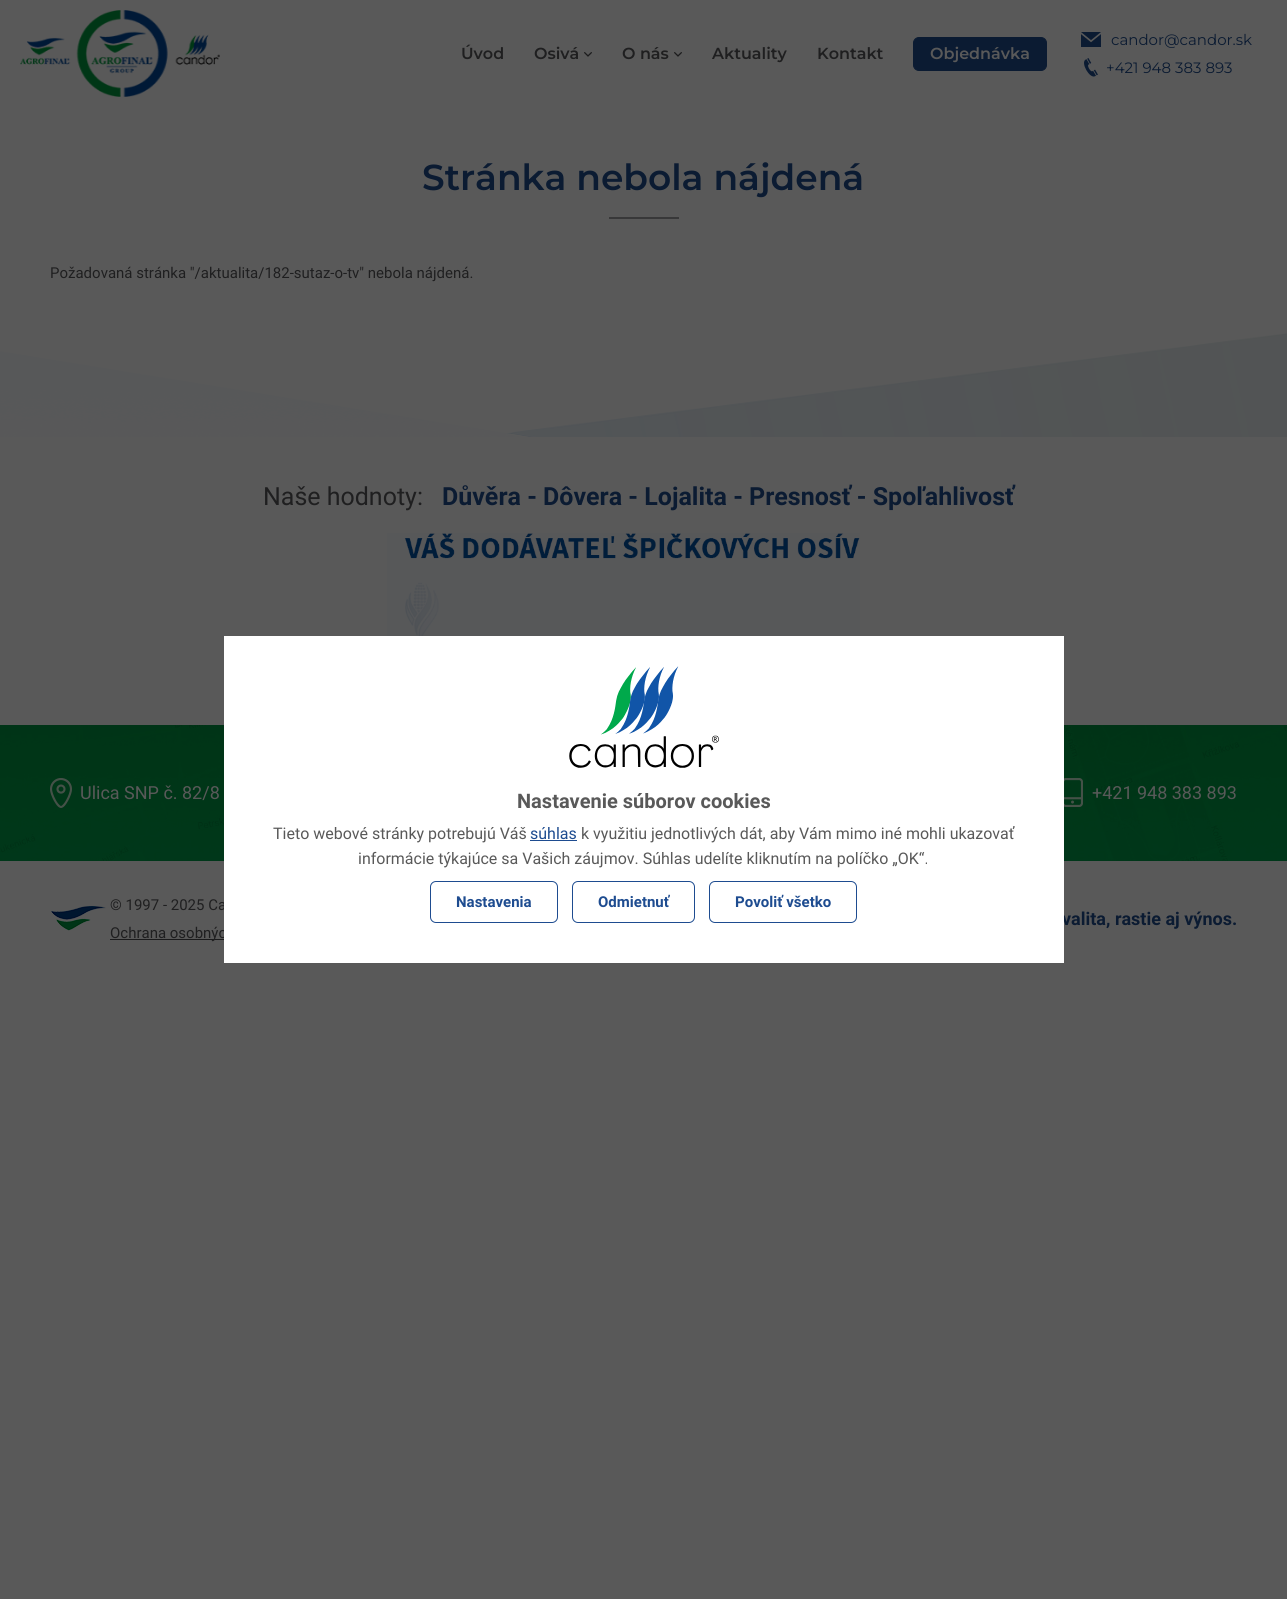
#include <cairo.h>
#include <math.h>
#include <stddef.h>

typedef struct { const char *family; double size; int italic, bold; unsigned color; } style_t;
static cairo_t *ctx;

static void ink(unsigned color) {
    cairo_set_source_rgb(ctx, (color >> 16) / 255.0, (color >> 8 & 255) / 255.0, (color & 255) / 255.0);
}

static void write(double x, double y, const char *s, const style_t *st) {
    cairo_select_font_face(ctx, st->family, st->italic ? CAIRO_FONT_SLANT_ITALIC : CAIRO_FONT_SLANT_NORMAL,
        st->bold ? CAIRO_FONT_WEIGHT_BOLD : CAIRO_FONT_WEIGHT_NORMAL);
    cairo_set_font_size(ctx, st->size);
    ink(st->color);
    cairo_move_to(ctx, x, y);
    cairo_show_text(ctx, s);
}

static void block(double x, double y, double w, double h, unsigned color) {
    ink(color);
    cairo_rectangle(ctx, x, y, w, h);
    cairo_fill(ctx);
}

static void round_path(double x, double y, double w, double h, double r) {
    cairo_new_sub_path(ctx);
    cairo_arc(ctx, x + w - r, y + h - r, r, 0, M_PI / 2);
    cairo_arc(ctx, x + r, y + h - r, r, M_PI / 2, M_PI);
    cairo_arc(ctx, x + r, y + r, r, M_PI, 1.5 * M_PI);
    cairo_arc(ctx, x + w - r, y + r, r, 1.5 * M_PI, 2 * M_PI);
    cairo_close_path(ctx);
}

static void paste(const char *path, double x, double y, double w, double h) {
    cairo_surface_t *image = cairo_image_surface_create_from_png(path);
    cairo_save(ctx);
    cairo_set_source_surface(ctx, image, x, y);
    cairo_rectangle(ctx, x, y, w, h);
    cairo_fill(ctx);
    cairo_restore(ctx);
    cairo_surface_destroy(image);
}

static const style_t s1 = {"Montserrat Thin", 16, 0, 0, 0x1f1f20};
static const style_t s2 = {"Montserrat Thin", 16, 0, 0, 0x595959};
static const style_t s3 = {"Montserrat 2 Thin", 15, 0, 0, 0x0b1b32};
static const style_t s4 = {"Montserrat Thin", 36, 0, 0, 0x0b1b32};
static const style_t s5 = {"Roboto", 15, 0, 0, 0x1f1f20};
static const style_t s6 = {"Roboto", 25, 0, 0, 0x1f1f20};
static const style_t s7 = {"Roboto", 25, 0, 1, 0x0b1b32};
static const style_t s8 = {"Roboto", 18, 0, 0, 0x595959};
static const style_t s9 = {"Roboto", 18, 0, 1, 0x0b1b32};
static const style_t s10 = {"Roboto", 20, 0, 1, 0x595959};
static const style_t s11 = {"Roboto", 16, 0, 0, 0x595959};
static const style_t s12 = {"Roboto", 16, 0, 0, 0x1e4c90};
static const style_t s13 = {"Roboto", 15, 0, 1, 0x1e4c90};

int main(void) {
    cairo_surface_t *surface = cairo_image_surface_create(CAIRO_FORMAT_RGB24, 1287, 1599);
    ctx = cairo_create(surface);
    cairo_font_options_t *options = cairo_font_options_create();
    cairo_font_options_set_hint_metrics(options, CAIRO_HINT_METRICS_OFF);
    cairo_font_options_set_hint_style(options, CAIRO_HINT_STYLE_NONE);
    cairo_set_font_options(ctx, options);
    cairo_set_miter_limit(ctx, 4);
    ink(0x595959);
    cairo_paint(ctx);
    paste("pic1.png", 0, 333, 1287, 104);
    paste("pic2.png", 20, 10, 200, 87);
    write(461, 59, "Úvod", &s1);
    write(534, 59, "Osivá", &s1);
    paste("pic3.png", 584, 52, 8, 5);
    write(622, 59, "O nás", &s1);
    paste("pic3.png", 674, 52, 8, 5);
    write(712, 59, "Aktuality", &s1);
    write(817, 59, "Kontakt", &s1);
    ink(0x0b1b32);
    round_path(913.5, 37.5, 133, 33, 5.5);
    cairo_fill_preserve(ctx);
    cairo_set_line_width(ctx, 1);
    cairo_stroke(ctx);
    write(930, 59, "Objednávka", &s2);
    paste("pic4.png", 1081, 32, 20, 15);
    write(1111, 45, "candor@candor.sk", &s3);
    paste("pic5.png", 1084, 58, 14, 19);
    write(1106, 73, "+421 948 383 893", &s3);
    write(422, 190, "Stránka nebola nájdená", &s4);
    block(609, 217, 70, 2, 0x383839);
    write(50, 278, "Požadovaná stránka \"/aktualita/182-sutaz-o-tv\" nebola nájdená.", &s5);
    write(263, 505, "Naše hodnoty:", &s6);
    write(442, 505, "Důvěra - Dôvera - Lojalita - Presnosť - Spoľahlivosť", &s7);
    paste("pic6.png", 387, 533, 473, 103);
    paste("pic7.png", 0, 725, 1287, 136);
    paste("pic8.png", 50, 778, 22, 30);
    write(80, 799, "Ulica SNP č. 82/8", &s8);
    paste("pic9.png", 1064, 778, 19, 29);
    write(1092, 799, "+421 948 383 893", &s8);
    write(110, 910, "© 1997 - 2025 Ca", &s5);
    block(110, 939, 114, 1, 0x1b1b1c);
    write(110, 938, "Ochrana osobnýc", &s5);
    write(1062, 925, "valita, rastie aj výnos.", &s9);
    block(224, 636, 840, 327, 0xffffff);
    paste("pic10.png", 569, 666, 150, 102);
    write(517, 808, "Nastavenie súborov cookies", &s10);
    write(273, 839, "Tieto webové stránky potrebujú Váš", &s11);
    write(530, 839, "súhlas", &s12);
    block(530, 840, 47, 1, 0x1e4c90);
    write(581, 839, "k využitiu jednotlivých dát, aby Vám mimo iné mohli ukazovať", &s11);
    write(358, 864, "informácie týkajúce sa Vašich záujmov. Súhlas udelíte kliknutím na políčko „OK“.", &s11);
    round_path(430.5, 881.5, 127, 41, 5.5);
    ink(0x1e4c90);
    cairo_stroke(ctx);
    write(456, 907, "Nastavenia", &s13);
    round_path(572.5, 881.5, 122, 41, 5.5);
    cairo_stroke(ctx);
    write(598, 907, "Odmietnuť", &s13);
    round_path(709.5, 881.5, 147, 41, 5.5);
    cairo_stroke(ctx);
    write(735, 907, "Povoliť všetko", &s13);
    paste("pic11.png", 51, 906, 55, 25);
    cairo_surface_write_to_png(surface, "screenshot.png");
    cairo_font_options_destroy(options);
    cairo_destroy(ctx);
    cairo_surface_destroy(surface);
    return 0;
}
